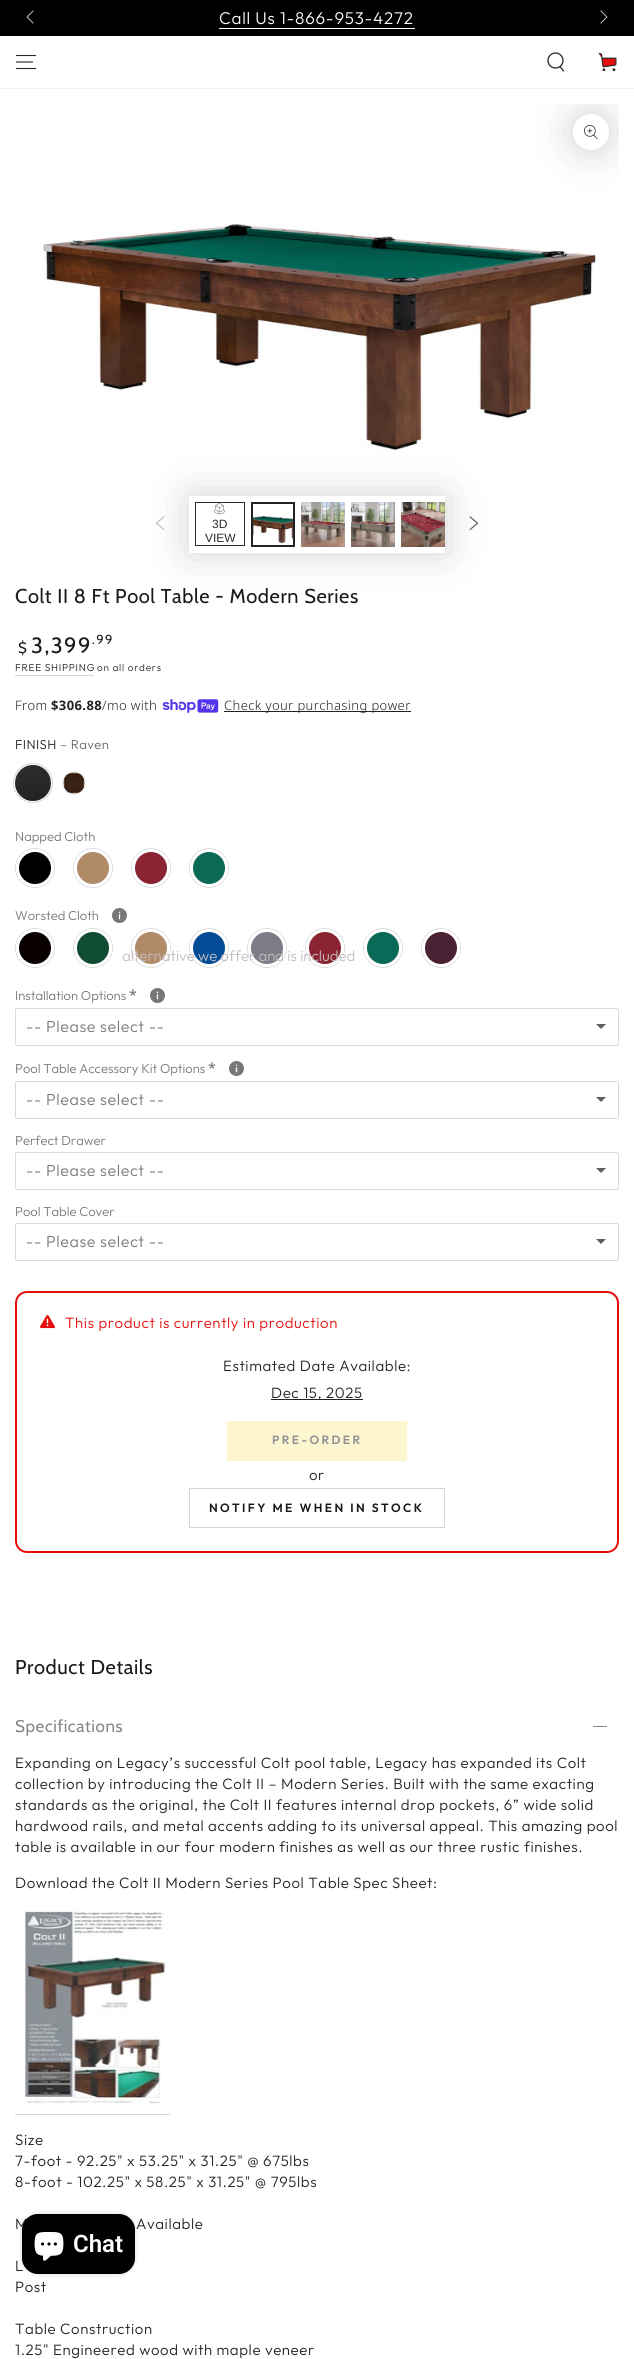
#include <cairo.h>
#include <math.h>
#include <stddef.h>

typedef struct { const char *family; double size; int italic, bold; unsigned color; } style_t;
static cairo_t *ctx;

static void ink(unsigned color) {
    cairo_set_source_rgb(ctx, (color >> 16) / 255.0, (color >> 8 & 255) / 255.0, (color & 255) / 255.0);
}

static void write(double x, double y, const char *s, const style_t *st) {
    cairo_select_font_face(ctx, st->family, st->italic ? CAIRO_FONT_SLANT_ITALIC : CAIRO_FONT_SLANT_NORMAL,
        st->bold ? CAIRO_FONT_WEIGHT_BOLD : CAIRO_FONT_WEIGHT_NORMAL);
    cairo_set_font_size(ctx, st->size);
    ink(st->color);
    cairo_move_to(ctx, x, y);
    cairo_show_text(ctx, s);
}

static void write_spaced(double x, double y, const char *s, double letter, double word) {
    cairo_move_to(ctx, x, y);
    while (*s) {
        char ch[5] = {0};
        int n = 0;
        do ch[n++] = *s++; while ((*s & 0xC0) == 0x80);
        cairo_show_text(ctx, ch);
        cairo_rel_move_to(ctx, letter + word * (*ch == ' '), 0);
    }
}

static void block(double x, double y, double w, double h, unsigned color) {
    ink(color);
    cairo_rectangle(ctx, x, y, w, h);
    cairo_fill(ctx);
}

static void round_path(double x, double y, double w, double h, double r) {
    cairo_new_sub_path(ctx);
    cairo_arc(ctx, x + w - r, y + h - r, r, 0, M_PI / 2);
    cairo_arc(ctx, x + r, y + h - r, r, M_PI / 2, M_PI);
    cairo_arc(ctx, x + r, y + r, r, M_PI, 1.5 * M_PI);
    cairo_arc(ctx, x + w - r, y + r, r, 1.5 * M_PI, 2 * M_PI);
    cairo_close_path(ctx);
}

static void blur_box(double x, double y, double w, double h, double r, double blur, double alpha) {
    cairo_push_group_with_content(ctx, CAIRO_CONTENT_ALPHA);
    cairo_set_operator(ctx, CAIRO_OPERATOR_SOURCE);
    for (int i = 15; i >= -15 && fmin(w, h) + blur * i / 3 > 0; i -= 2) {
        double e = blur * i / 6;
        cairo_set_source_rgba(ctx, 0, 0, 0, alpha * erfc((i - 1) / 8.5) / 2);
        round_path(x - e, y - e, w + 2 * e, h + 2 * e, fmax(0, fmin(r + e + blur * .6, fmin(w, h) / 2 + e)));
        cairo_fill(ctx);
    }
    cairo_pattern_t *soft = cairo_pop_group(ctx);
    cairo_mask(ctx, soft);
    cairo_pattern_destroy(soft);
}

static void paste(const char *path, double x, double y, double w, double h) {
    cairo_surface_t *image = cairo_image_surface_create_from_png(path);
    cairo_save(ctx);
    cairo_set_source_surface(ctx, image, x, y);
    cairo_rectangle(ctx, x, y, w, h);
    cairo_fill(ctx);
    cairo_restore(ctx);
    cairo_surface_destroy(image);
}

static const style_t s1 = {"Liberation Sans", 12, 0, 0, 0x2d2a26};
static const style_t s2 = {"Outfit Light", 13, 0, 0, 0x777777};
static const style_t s3 = {"Outfit Light", 15, 0, 0, 0xc4bbc0};
static const style_t s4 = {"Open Sans SemiBold", 14, 0, 0, 0x777777};
static const style_t s5 = {"Roboto SemiBold", 24, 0, 0, 0xffffff};

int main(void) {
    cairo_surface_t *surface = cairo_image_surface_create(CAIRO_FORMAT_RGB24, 634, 2359);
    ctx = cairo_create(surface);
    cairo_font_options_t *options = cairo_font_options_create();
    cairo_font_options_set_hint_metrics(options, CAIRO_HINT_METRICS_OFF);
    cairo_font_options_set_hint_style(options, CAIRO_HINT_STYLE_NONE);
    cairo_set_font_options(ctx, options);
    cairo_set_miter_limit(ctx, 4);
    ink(0xffffff);
    cairo_paint(ctx);
    block(0, 0, 634, 36, 0x000000);
    paste("pic1.png", 26, 10, 8, 14);
    paste("pic2.png", 600, 10, 8, 14);
    block(219, 28, 196, 1, 0xffffff);
    cairo_select_font_face(ctx, "Outfit Light", CAIRO_FONT_SLANT_NORMAL, CAIRO_FONT_WEIGHT_NORMAL);
    cairo_set_font_size(ctx, 17);
    write_spaced(219, 24, "Call Us 1-866-953-4272", 0.75, 0);
    paste("pic5.png", 15, 104, 604, 382);
    cairo_save(ctx);
    cairo_rectangle(ctx, 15, 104, 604, 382);
    cairo_clip(ctx);
    ink(0x212326);
    blur_box(573, 114, 36, 36, 18, 20, 0.2);
    cairo_restore(ctx);
    block(0, 88, 634, 1, 0xf2f2f4);
    cairo_new_path(ctx);
    cairo_move_to(ctx, 16, 68.5);
    cairo_line_to(ctx, 36, 68.5);
    cairo_move_to(ctx, 16, 62);
    cairo_line_to(ctx, 33, 62);
    cairo_move_to(ctx, 16, 55.5);
    cairo_line_to(ctx, 36, 55.5);
    ink(0x282828);
    cairo_set_line_width(ctx, 1.1);
    cairo_stroke(ctx);
    cairo_arc(ctx, 555.5, 60.5, 7.5, 0, 2 * M_PI);
    cairo_set_line_width(ctx, 1.3);
    cairo_stroke(ctx);
    cairo_new_path(ctx);
    cairo_move_to(ctx, 560, 66.5);
    cairo_line_to(ctx, 563.5, 71);
    cairo_set_line_cap(ctx, CAIRO_LINE_CAP_ROUND);
    cairo_stroke(ctx);
    paste("pic3.png", 598, 53, 19, 19);
    ink(0xffffff);
    cairo_arc(ctx, 591, 132, 18, 0, 2 * M_PI);
    cairo_fill(ctx);
    paste("pic4.png", 584, 125, 14, 14);
    cairo_save(ctx);
    cairo_set_fill_rule(ctx, CAIRO_FILL_RULE_EVEN_ODD);
    cairo_new_path(ctx);
    cairo_move_to(ctx, 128, 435);
    cairo_line_to(ctx, 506, 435);
    cairo_line_to(ctx, 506, 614);
    cairo_line_to(ctx, 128, 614);
    cairo_close_path(ctx);
    cairo_move_to(ctx, 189, 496);
    cairo_line_to(ctx, 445, 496);
    cairo_line_to(ctx, 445, 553);
    cairo_line_to(ctx, 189, 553);
    cairo_close_path(ctx);
    cairo_clip(ctx);
    ink(0x212326);
    blur_box(189, 496, 256, 57, 0, 20, 0.2);
    cairo_restore(ctx);
    paste("pic6.png", 156, 516, 9, 14);
    paste("pic7.png", 469, 516, 10, 14);
    cairo_rectangle(ctx, 195.5, 502.5, 49, 43);
    ink(0x2d2a26);
    cairo_set_line_width(ctx, 1);
    cairo_set_line_cap(ctx, CAIRO_LINE_CAP_BUTT);
    cairo_stroke(ctx);
    paste("pic8.png", 214, 503, 11, 12);
    write(212, 528, "3D", &s1);
    write(205, 542, "VIEW", &s1);
    paste("pic9.png", 253, 504, 40, 41);
    cairo_rectangle(ctx, 252, 503, 42, 43);
    ink(0x212326);
    cairo_set_line_width(ctx, 2);
    cairo_stroke(ctx);
    paste("pic10.png", 301, 502, 44, 45);
    cairo_rectangle(ctx, 301.5, 502.5, 43, 44);
    cairo_set_source_rgba(ctx, 0.129, 0.137, 0.149, 0.04);
    cairo_set_line_width(ctx, 1);
    cairo_stroke(ctx);
    paste("pic11.png", 351, 502, 44, 45);
    cairo_rectangle(ctx, 351.5, 502.5, 43, 44);
    cairo_stroke(ctx);
    paste("pic12.png", 401, 502, 44, 45);
    cairo_rectangle(ctx, 401.5, 502.5, 43, 44);
    cairo_stroke(ctx);
    cairo_select_font_face(ctx, "Cabin", CAIRO_FONT_SLANT_NORMAL, CAIRO_FONT_WEIGHT_NORMAL);
    cairo_set_font_size(ctx, 20);
    ink(0x1a1b18);
    write_spaced(15, 603, "Colt II 8 Ft Pool Table - Modern Series", 0.6, 0);
    cairo_set_font_size(ctx, 15);
    write_spaced(18, 653, "$", 1.5, 0);
    cairo_set_font_size(ctx, 22);
    write_spaced(31, 653, "3,399", 1.5, 0);
    cairo_set_font_size(ctx, 13);
    write_spaced(92, 644, ".99", 1.5, 0);
    cairo_select_font_face(ctx, "Outfit Light", CAIRO_FONT_SLANT_NORMAL, CAIRO_FONT_WEIGHT_NORMAL);
    cairo_set_font_size(ctx, 10);
    write_spaced(15, 671, "FREE SHIPPING", 0.75, 0);
    block(15, 675, 79, 1, 0xd2d5d9);
    ink(0x212326);
    write_spaced(97, 671, "on all orders", 0.75, 0);
    cairo_select_font_face(ctx, "Noto Sans Light", CAIRO_FONT_SLANT_NORMAL, CAIRO_FONT_WEIGHT_NORMAL);
    cairo_set_font_size(ctx, 13);
    write_spaced(15, 710, "From", 0.4, 0);
    cairo_select_font_face(ctx, "Noto Sans", CAIRO_FONT_SLANT_NORMAL, CAIRO_FONT_WEIGHT_BOLD);
    write_spaced(51, 710, "$306.88", 0.4, 0);
    cairo_select_font_face(ctx, "Noto Sans Light", CAIRO_FONT_SLANT_NORMAL, CAIRO_FONT_WEIGHT_NORMAL);
    write_spaced(102, 710, "/mo with", 0.4, 0);
    paste("pic13.png", 162, 699, 57, 14);
    block(224, 711, 187, 1, 0x212326);
    write_spaced(224, 710, "Check your purchasing power", 0.4, 0);
    cairo_select_font_face(ctx, "Outfit Light", CAIRO_FONT_SLANT_NORMAL, CAIRO_FONT_WEIGHT_NORMAL);
    write_spaced(15, 749, "FINISH", 0.4, 0);
    ink(0x646567);
    write_spaced(60, 749, "– Raven", 0.4, 0);
    paste("pic14.png", 15, 765, 36, 36);
    cairo_arc(ctx, 33, 783, 19.5, 0, 2 * M_PI);
    ink(0xd2d5d9);
    cairo_stroke(ctx);
    paste("pic15.png", 63, 772, 22, 22);
    cairo_arc(ctx, 74, 783, 11.7, 0, 2 * M_PI);
    ink(0xe7eaef);
    cairo_set_line_width(ctx, 0.6);
    cairo_stroke(ctx);
    write(15, 841, "Napped Cloth", &s2);
    cairo_new_path(ctx);
    cairo_arc(ctx, 35, 868, 19.5, 0, 2 * M_PI);
    ink(0xdddddd);
    cairo_set_line_width(ctx, 1);
    cairo_stroke(ctx);
    cairo_arc(ctx, 35, 868, 17.5, 0, 2 * M_PI);
    ink(0xffffff);
    cairo_set_line_width(ctx, 3);
    cairo_stroke(ctx);
    ink(0x000000);
    cairo_arc(ctx, 35, 868, 16, 0, 2 * M_PI);
    cairo_fill(ctx);
    cairo_arc(ctx, 93, 868, 19.5, 0, 2 * M_PI);
    ink(0xdddddd);
    cairo_set_line_width(ctx, 1);
    cairo_stroke(ctx);
    cairo_arc(ctx, 93, 868, 17.5, 0, 2 * M_PI);
    ink(0xffffff);
    cairo_set_line_width(ctx, 3);
    cairo_stroke(ctx);
    ink(0xb18b68);
    cairo_arc(ctx, 93, 868, 16, 0, 2 * M_PI);
    cairo_fill(ctx);
    cairo_arc(ctx, 151, 868, 19.5, 0, 2 * M_PI);
    ink(0xdddddd);
    cairo_set_line_width(ctx, 1);
    cairo_stroke(ctx);
    cairo_arc(ctx, 151, 868, 17.5, 0, 2 * M_PI);
    ink(0xffffff);
    cairo_set_line_width(ctx, 3);
    cairo_stroke(ctx);
    ink(0x8a2432);
    cairo_arc(ctx, 151, 868, 16, 0, 2 * M_PI);
    cairo_fill(ctx);
    cairo_arc(ctx, 209, 868, 19.5, 0, 2 * M_PI);
    ink(0xdddddd);
    cairo_set_line_width(ctx, 1);
    cairo_stroke(ctx);
    cairo_arc(ctx, 209, 868, 17.5, 0, 2 * M_PI);
    ink(0xffffff);
    cairo_set_line_width(ctx, 3);
    cairo_stroke(ctx);
    ink(0x0b6956);
    cairo_arc(ctx, 209, 868, 16, 0, 2 * M_PI);
    cairo_fill(ctx);
    write(15, 920, "Worsted Cloth", &s2);
    paste("pic16.png", 112, 908, 15, 15);
    cairo_arc(ctx, 151, 948, 19.5, 0, 2 * M_PI);
    ink(0xdddddd);
    cairo_set_line_width(ctx, 1);
    cairo_stroke(ctx);
    cairo_arc(ctx, 151, 948, 17.5, 0, 2 * M_PI);
    ink(0xffffff);
    cairo_set_line_width(ctx, 3);
    cairo_stroke(ctx);
    ink(0xb18b68);
    cairo_arc(ctx, 151, 948, 16, 0, 2 * M_PI);
    cairo_fill(ctx);
    cairo_arc(ctx, 209, 948, 19.5, 0, 2 * M_PI);
    ink(0xdddddd);
    cairo_set_line_width(ctx, 1);
    cairo_stroke(ctx);
    cairo_arc(ctx, 209, 948, 17.5, 0, 2 * M_PI);
    ink(0xffffff);
    cairo_set_line_width(ctx, 3);
    cairo_stroke(ctx);
    ink(0x024d96);
    cairo_arc(ctx, 209, 948, 16, 0, 2 * M_PI);
    cairo_fill(ctx);
    cairo_arc(ctx, 267, 948, 19.5, 0, 2 * M_PI);
    ink(0xdddddd);
    cairo_set_line_width(ctx, 1);
    cairo_stroke(ctx);
    cairo_arc(ctx, 267, 948, 17.5, 0, 2 * M_PI);
    ink(0xffffff);
    cairo_set_line_width(ctx, 3);
    cairo_stroke(ctx);
    ink(0x7b7c85);
    cairo_arc(ctx, 267, 948, 16, 0, 2 * M_PI);
    cairo_fill(ctx);
    cairo_arc(ctx, 325, 948, 19.5, 0, 2 * M_PI);
    ink(0xdddddd);
    cairo_set_line_width(ctx, 1);
    cairo_stroke(ctx);
    cairo_arc(ctx, 325, 948, 17.5, 0, 2 * M_PI);
    ink(0xffffff);
    cairo_set_line_width(ctx, 3);
    cairo_stroke(ctx);
    ink(0x8a2432);
    cairo_arc(ctx, 325, 948, 16, 0, 2 * M_PI);
    cairo_fill(ctx);
    write(122, 961, "alternative we offer and is included", &s3);
    cairo_new_path(ctx);
    cairo_arc(ctx, 35, 948, 19.5, 0, 2 * M_PI);
    ink(0xdddddd);
    cairo_set_line_width(ctx, 1);
    cairo_stroke(ctx);
    cairo_arc(ctx, 35, 948, 17.5, 0, 2 * M_PI);
    ink(0xffffff);
    cairo_set_line_width(ctx, 3);
    cairo_stroke(ctx);
    ink(0x090000);
    cairo_arc(ctx, 35, 948, 16, 0, 2 * M_PI);
    cairo_fill(ctx);
    cairo_arc(ctx, 93, 948, 19.5, 0, 2 * M_PI);
    ink(0xdddddd);
    cairo_set_line_width(ctx, 1);
    cairo_stroke(ctx);
    cairo_arc(ctx, 93, 948, 17.5, 0, 2 * M_PI);
    ink(0xffffff);
    cairo_set_line_width(ctx, 3);
    cairo_stroke(ctx);
    ink(0x0f4c31);
    cairo_arc(ctx, 93, 948, 16, 0, 2 * M_PI);
    cairo_fill(ctx);
    cairo_arc(ctx, 383, 948, 19.5, 0, 2 * M_PI);
    ink(0xdddddd);
    cairo_set_line_width(ctx, 1);
    cairo_stroke(ctx);
    cairo_arc(ctx, 383, 948, 17.5, 0, 2 * M_PI);
    ink(0xffffff);
    cairo_set_line_width(ctx, 3);
    cairo_stroke(ctx);
    ink(0x0a6957);
    cairo_arc(ctx, 383, 948, 16, 0, 2 * M_PI);
    cairo_fill(ctx);
    cairo_arc(ctx, 441, 948, 19.5, 0, 2 * M_PI);
    ink(0xdddddd);
    cairo_set_line_width(ctx, 1);
    cairo_stroke(ctx);
    cairo_arc(ctx, 441, 948, 17.5, 0, 2 * M_PI);
    ink(0xffffff);
    cairo_set_line_width(ctx, 3);
    cairo_stroke(ctx);
    ink(0x4a2033);
    cairo_arc(ctx, 441, 948, 16, 0, 2 * M_PI);
    cairo_fill(ctx);
    write(15, 1000, "Installation Options", &s2);
    write(129, 1000, "*", &s4);
    paste("pic16.png", 150, 988, 15, 15);
    round_path(15.5, 1008.5, 603, 37, 1.5);
    ink(0xdadada);
    cairo_set_line_width(ctx, 1);
    cairo_stroke(ctx);
    cairo_select_font_face(ctx, "Outfit Light", CAIRO_FONT_SLANT_NORMAL, CAIRO_FONT_WEIGHT_NORMAL);
    cairo_set_font_size(ctx, 16);
    ink(0x777777);
    write_spaced(26, 1032, "-- Please select --", 0.6, 0);
    ink(0x5c5f62);
    cairo_new_path(ctx);
    cairo_move_to(ctx, 596, 1024);
    cairo_line_to(ctx, 606, 1024);
    cairo_line_to(ctx, 601, 1029);
    cairo_close_path(ctx);
    cairo_fill(ctx);
    write(15, 1073, "Pool Table Accessory Kit Options", &s2);
    write(208, 1073, "*", &s4);
    paste("pic16.png", 229, 1061, 15, 15);
    round_path(15.5, 1081.5, 603, 37, 1.5);
    ink(0xdadada);
    cairo_stroke(ctx);
    cairo_select_font_face(ctx, "Outfit Light", CAIRO_FONT_SLANT_NORMAL, CAIRO_FONT_WEIGHT_NORMAL);
    cairo_set_font_size(ctx, 16);
    ink(0x777777);
    write_spaced(26, 1105, "-- Please select --", 0.6, 0);
    ink(0x5c5f62);
    cairo_new_path(ctx);
    cairo_move_to(ctx, 596, 1097);
    cairo_line_to(ctx, 606, 1097);
    cairo_line_to(ctx, 601, 1102);
    cairo_close_path(ctx);
    cairo_fill(ctx);
    write(15, 1145, "Perfect Drawer", &s2);
    round_path(15.5, 1152.5, 603, 37, 1.5);
    ink(0xdadada);
    cairo_stroke(ctx);
    cairo_set_font_size(ctx, 16);
    ink(0x777777);
    write_spaced(26, 1176, "-- Please select --", 0.6, 0);
    ink(0x5c5f62);
    cairo_new_path(ctx);
    cairo_move_to(ctx, 596, 1168);
    cairo_line_to(ctx, 606, 1168);
    cairo_line_to(ctx, 601, 1173);
    cairo_close_path(ctx);
    cairo_fill(ctx);
    write(15, 1216, "Pool Table Cover", &s2);
    round_path(15.5, 1223.5, 603, 37, 1.5);
    ink(0xdadada);
    cairo_stroke(ctx);
    cairo_set_font_size(ctx, 16);
    ink(0x777777);
    write_spaced(26, 1247, "-- Please select --", 0.6, 0);
    ink(0x5c5f62);
    cairo_new_path(ctx);
    cairo_move_to(ctx, 596, 1239);
    cairo_line_to(ctx, 606, 1239);
    cairo_line_to(ctx, 601, 1244);
    cairo_close_path(ctx);
    cairo_fill(ctx);
    round_path(16, 1292, 602, 260, 11);
    ink(0xe50e0c);
    cairo_set_line_width(ctx, 2);
    cairo_stroke(ctx);
    paste("pic17.png", 40, 1315, 15, 14);
    cairo_set_font_size(ctx, 15);
    write_spaced(65, 1328, "This product is currently in production", 0.6, 0);
    ink(0x212326);
    write_spaced(223, 1371, "Estimated Date Available:", 0.6, 0);
    block(271, 1399, 92, 1, 0x212326);
    write_spaced(271, 1398, "Dec 15, 2025", 0.6, 0);
    block(227, 1421, 180, 40, 0xfdf5d0);
    cairo_select_font_face(ctx, "Outfit SemiBold", CAIRO_FONT_SLANT_NORMAL, CAIRO_FONT_WEIGHT_NORMAL);
    cairo_set_font_size(ctx, 12);
    ink(0x909193);
    write_spaced(272, 1444, "PRE-ORDER", 2.4, 0);
    cairo_select_font_face(ctx, "Outfit Light", CAIRO_FONT_SLANT_NORMAL, CAIRO_FONT_WEIGHT_NORMAL);
    cairo_set_font_size(ctx, 15);
    ink(0x212326);
    write_spaced(309, 1480, "or", 0.6, 0);
    cairo_rectangle(ctx, 189.5, 1488.5, 255, 39);
    ink(0xd2d5d9);
    cairo_set_line_width(ctx, 1);
    cairo_stroke(ctx);
    cairo_select_font_face(ctx, "Outfit SemiBold", CAIRO_FONT_SLANT_NORMAL, CAIRO_FONT_WEIGHT_NORMAL);
    cairo_set_font_size(ctx, 12);
    ink(0x1a1b18);
    write_spaced(209, 1512, "NOTIFY ME WHEN IN STOCK", 2.4, 0);
    cairo_select_font_face(ctx, "Cabin", CAIRO_FONT_SLANT_NORMAL, CAIRO_FONT_WEIGHT_NORMAL);
    cairo_set_font_size(ctx, 20);
    write_spaced(15, 1674, "Product Details", 0.6, 0);
    cairo_set_font_size(ctx, 17);
    ink(0x858688);
    write_spaced(15, 1732, "Specifications", 0.6, 0);
    block(593, 1726, 14, 1, 0x858688);
    cairo_select_font_face(ctx, "Outfit Light", CAIRO_FONT_SLANT_NORMAL, CAIRO_FONT_WEIGHT_NORMAL);
    cairo_set_font_size(ctx, 15);
    ink(0x212326);
    write_spaced(15, 1768, "Expanding on Legacy’s successful Colt pool table, Legacy has expanded its Colt", 0.6, 0);
    write_spaced(15, 1789, "collection by introducing the Colt II – Modern Series. Built with the same exacting", 0.6, 0);
    write_spaced(15, 1810, "standards as the original, the Colt II features internal drop pockets, 6” wide solid", 0.6, 0);
    write_spaced(15, 1831, "hardwood rails, and metal accents adding to its universal appeal. This amazing pool", 0.6, 0);
    write_spaced(15, 1852, "table is available in our four modern finishes as well as our three rustic finishes.", 0.6, 0);
    write_spaced(15, 1888, "Download the Colt II Modern Series Pool Table Spec Sheet:", 0.6, 0);
    paste("pic18.png", 23, 1909, 146, 196);
    block(15, 2114, 155, 1, 0xd2d5d9);
    ink(0x212326);
    write_spaced(15, 2145, "Size", 0.6, 0);
    write_spaced(15, 2166, "7-foot - 92.25\" x 53.25\" x 31.25\" @ 675lbs", 0.6, 0);
    write_spaced(15, 2187, "8-foot - 102.25\" x 58.25\" x 31.25\" @ 795lbs", 0.6, 0);
    write_spaced(15, 2229, "M", 0.6, 0);
    write_spaced(136, 2229, "Available", 0.6, 0);
    write_spaced(15, 2271, "L", 0.6, 0);
    write_spaced(15, 2292, "Post", 0.6, 0);
    write_spaced(15, 2334, "Table Construction", 0.6, 0);
    write_spaced(15, 2355, "1.25\" Engineered wood with maple veneer", 0.6, 0);
    ink(0x000000);
    blur_box(22, 2214, 113, 60, 16, 2.5, 0.15);
    ink(0x000000);
    round_path(22, 2214, 113, 60, 16);
    cairo_fill(ctx);
    paste("pic19.png", 34, 2232, 30, 29);
    write(73, 2252, "Chat", &s5);
    cairo_surface_write_to_png(surface, "screenshot.png");
    cairo_font_options_destroy(options);
    cairo_destroy(ctx);
    cairo_surface_destroy(surface);
    return 0;
}
